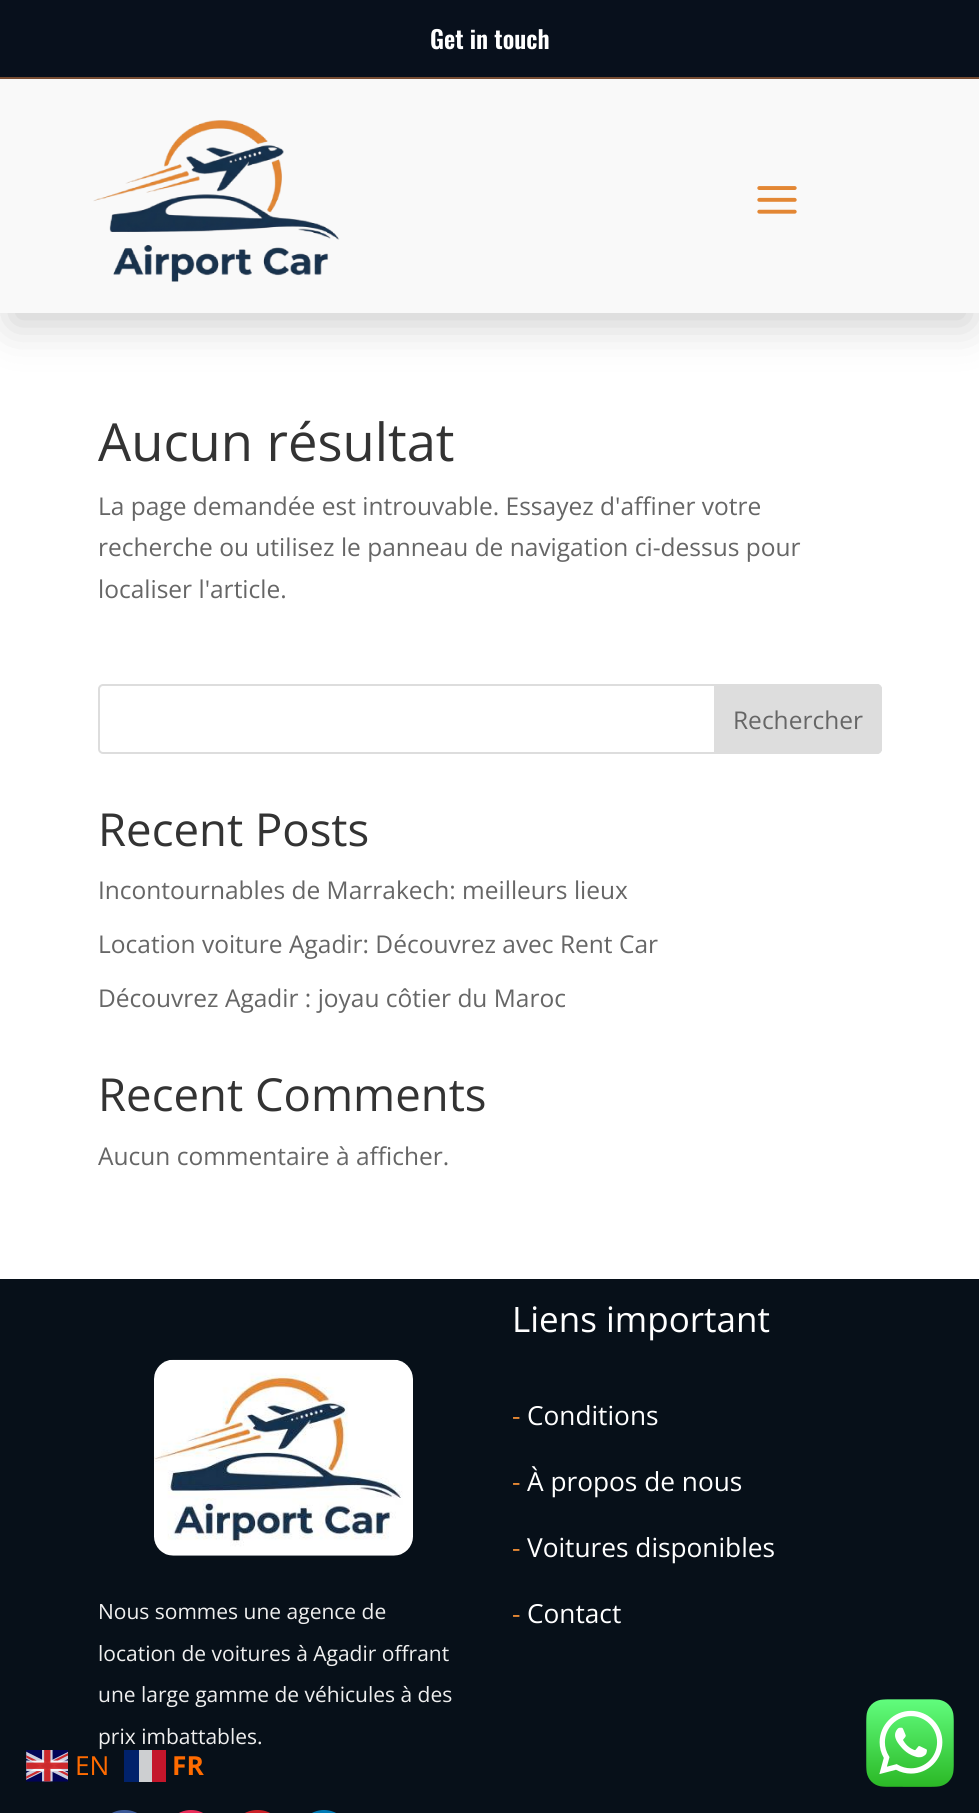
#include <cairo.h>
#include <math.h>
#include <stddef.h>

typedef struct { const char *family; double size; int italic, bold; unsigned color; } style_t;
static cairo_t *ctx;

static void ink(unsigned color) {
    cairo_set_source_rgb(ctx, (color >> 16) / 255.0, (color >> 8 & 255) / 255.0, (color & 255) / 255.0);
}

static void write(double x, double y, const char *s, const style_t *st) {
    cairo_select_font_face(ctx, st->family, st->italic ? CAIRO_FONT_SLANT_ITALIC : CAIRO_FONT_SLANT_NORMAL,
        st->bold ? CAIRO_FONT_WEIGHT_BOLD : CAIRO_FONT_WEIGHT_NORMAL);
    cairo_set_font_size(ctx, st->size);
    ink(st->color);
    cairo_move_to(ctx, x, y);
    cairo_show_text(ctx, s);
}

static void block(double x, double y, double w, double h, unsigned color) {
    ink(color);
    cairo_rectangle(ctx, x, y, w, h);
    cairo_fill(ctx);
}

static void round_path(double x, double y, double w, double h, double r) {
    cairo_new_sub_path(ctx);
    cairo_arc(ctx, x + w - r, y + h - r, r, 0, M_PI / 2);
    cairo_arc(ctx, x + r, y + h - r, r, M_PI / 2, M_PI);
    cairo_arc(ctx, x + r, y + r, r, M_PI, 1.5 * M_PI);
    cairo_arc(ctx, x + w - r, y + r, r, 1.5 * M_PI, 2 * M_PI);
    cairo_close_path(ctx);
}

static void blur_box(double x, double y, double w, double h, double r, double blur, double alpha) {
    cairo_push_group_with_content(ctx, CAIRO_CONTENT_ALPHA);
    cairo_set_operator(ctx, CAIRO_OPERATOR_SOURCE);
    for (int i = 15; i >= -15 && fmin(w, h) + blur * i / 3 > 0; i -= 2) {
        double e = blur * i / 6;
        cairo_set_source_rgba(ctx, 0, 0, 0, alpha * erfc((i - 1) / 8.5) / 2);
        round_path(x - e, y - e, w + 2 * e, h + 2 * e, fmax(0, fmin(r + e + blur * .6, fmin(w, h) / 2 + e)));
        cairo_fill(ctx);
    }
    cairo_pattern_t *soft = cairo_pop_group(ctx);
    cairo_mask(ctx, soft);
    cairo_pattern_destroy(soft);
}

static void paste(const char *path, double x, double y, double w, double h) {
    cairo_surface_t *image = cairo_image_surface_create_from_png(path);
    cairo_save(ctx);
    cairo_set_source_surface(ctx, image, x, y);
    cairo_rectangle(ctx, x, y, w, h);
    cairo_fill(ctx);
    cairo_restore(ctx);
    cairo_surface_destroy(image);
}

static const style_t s1 = {"Oswald SemiBold", 24.5, 0, 0, 0xffffff};
static const style_t s2 = {"Open Sans", 52.5, 0, 0, 0x333333};
static const style_t s3 = {"Open Sans", 24.5, 0, 0, 0x666666};
static const style_t s4 = {"Open Sans", 45.5, 0, 0, 0x333333};
static const style_t s5 = {"Open Sans", 35, 0, 0, 0xffffff};
static const style_t s6 = {"Open Sans", 26.25, 0, 0, 0xe38734};
static const style_t s7 = {"Open Sans", 26.25, 0, 0, 0xffffff};
static const style_t s8 = {"Open Sans", 21, 0, 0, 0xefefef};
static const style_t s9 = {"Open Sans", 26.25, 0, 0, 0xff6b00};
static const style_t s10 = {"Open Sans", 26.25, 0, 1, 0xff6b00};

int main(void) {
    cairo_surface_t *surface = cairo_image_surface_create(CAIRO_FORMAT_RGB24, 979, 1813);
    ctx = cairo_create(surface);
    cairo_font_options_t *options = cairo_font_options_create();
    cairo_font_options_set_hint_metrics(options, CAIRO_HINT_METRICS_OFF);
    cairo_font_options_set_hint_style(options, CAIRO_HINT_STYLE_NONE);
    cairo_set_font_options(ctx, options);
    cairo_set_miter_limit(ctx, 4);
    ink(0xffffff);
    cairo_paint(ctx);
    ink(0x000000);
    blur_box(11, 32, 959, 292, 0, 22, 0.2);
    block(0, 0, 979, 77, 0x08101c);
    block(0, 77, 979, 2, 0x774c32);
    write(430, 49, "Get in touch", &s1);
    block(0, 79, 979, 234, 0xf9f9f9);
    paste("pic1.png", 93, 120, 247, 162);
    paste("pic2.png", 757, 186, 40, 28);
    write(98, 461, "Aucun résultat", &s2);
    write(98, 515, "La page demandée est introuvable. Essayez d'affiner votre", &s3);
    write(98, 556, "recherche ou utilisez le panneau de navigation ci-dessus pour", &s3);
    write(98, 598, "localiser l'article.", &s3);
    round_path(99, 685, 782, 68, 4);
    ink(0xdddddd);
    cairo_stroke(ctx);
    cairo_new_path(ctx);
    cairo_move_to(ctx, 715, 685);
    cairo_line_to(ctx, 877, 685);
    cairo_curve_to(ctx, 879, 685, 881, 687, 881, 689);
    cairo_line_to(ctx, 881, 749);
    cairo_curve_to(ctx, 881, 751, 879, 753, 877, 753);
    cairo_line_to(ctx, 715, 753);
    cairo_close_path(ctx);
    cairo_fill_preserve(ctx);
    cairo_stroke(ctx);
    write(733, 729, "Rechercher", &s3);
    write(98, 846, "Recent Posts", &s4);
    write(98, 899, "Incontournables de Marrakech: meilleurs lieux", &s3);
    write(98, 953, "Location voiture Agadir: Découvrez avec Rent Car", &s3);
    write(98, 1007, "Découvrez Agadir : joyau côtier du Maroc", &s3);
    write(98, 1111, "Recent Comments", &s4);
    write(98, 1165, "Aucun commentaire à afficher.", &s3);
    block(0, 1279, 979, 534, 0x071019);
    write(512, 1332, "Liens important", &s5);
    write(512, 1425, "-", &s6);
    write(527, 1425, "Conditions", &s7);
    write(512, 1491, "-", &s6);
    write(527, 1491, "À propos de nous", &s7);
    write(512, 1557, "-", &s6);
    write(527, 1557, "Voitures disponibles", &s7);
    write(512, 1623, "-", &s6);
    write(527, 1623, "Contact", &s7);
    paste("pic3.png", 154, 1359, 259, 197);
    write(98, 1619, "Nous sommes une agence de", &s8);
    write(98, 1661, "location de voitures à Agadir offrant", &s8);
    write(98, 1702, "une large gamme de véhicules à des", &s8);
    write(98, 1744, "prix imbattables.", &s8);
    ink(0x3b5998);
    round_path(98, 1810, 53, 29, 26);
    cairo_fill(ctx);
    ink(0xea2c59);
    round_path(165, 1810, 52, 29, 26);
    cairo_fill(ctx);
    ink(0xcb2027);
    round_path(231, 1810, 53, 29, 26);
    cairo_fill(ctx);
    ink(0x007bb6);
    round_path(298, 1810, 52, 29, 26);
    cairo_fill(ctx);
    paste("pic4.png", 866, 1699, 88, 88);
    paste("pic5.png", 26, 1750, 42, 32);
    write(75, 1775, "EN", &s9);
    write(172, 1775, "FR", &s10);
    block(139, 1750, 13, 32, 0xcdcfd1);
    block(124, 1750, 15, 32, 0x01226b);
    block(152, 1750, 14, 32, 0xc4162b);
    cairo_surface_write_to_png(surface, "screenshot.png");
    cairo_font_options_destroy(options);
    cairo_destroy(ctx);
    cairo_surface_destroy(surface);
    return 0;
}
